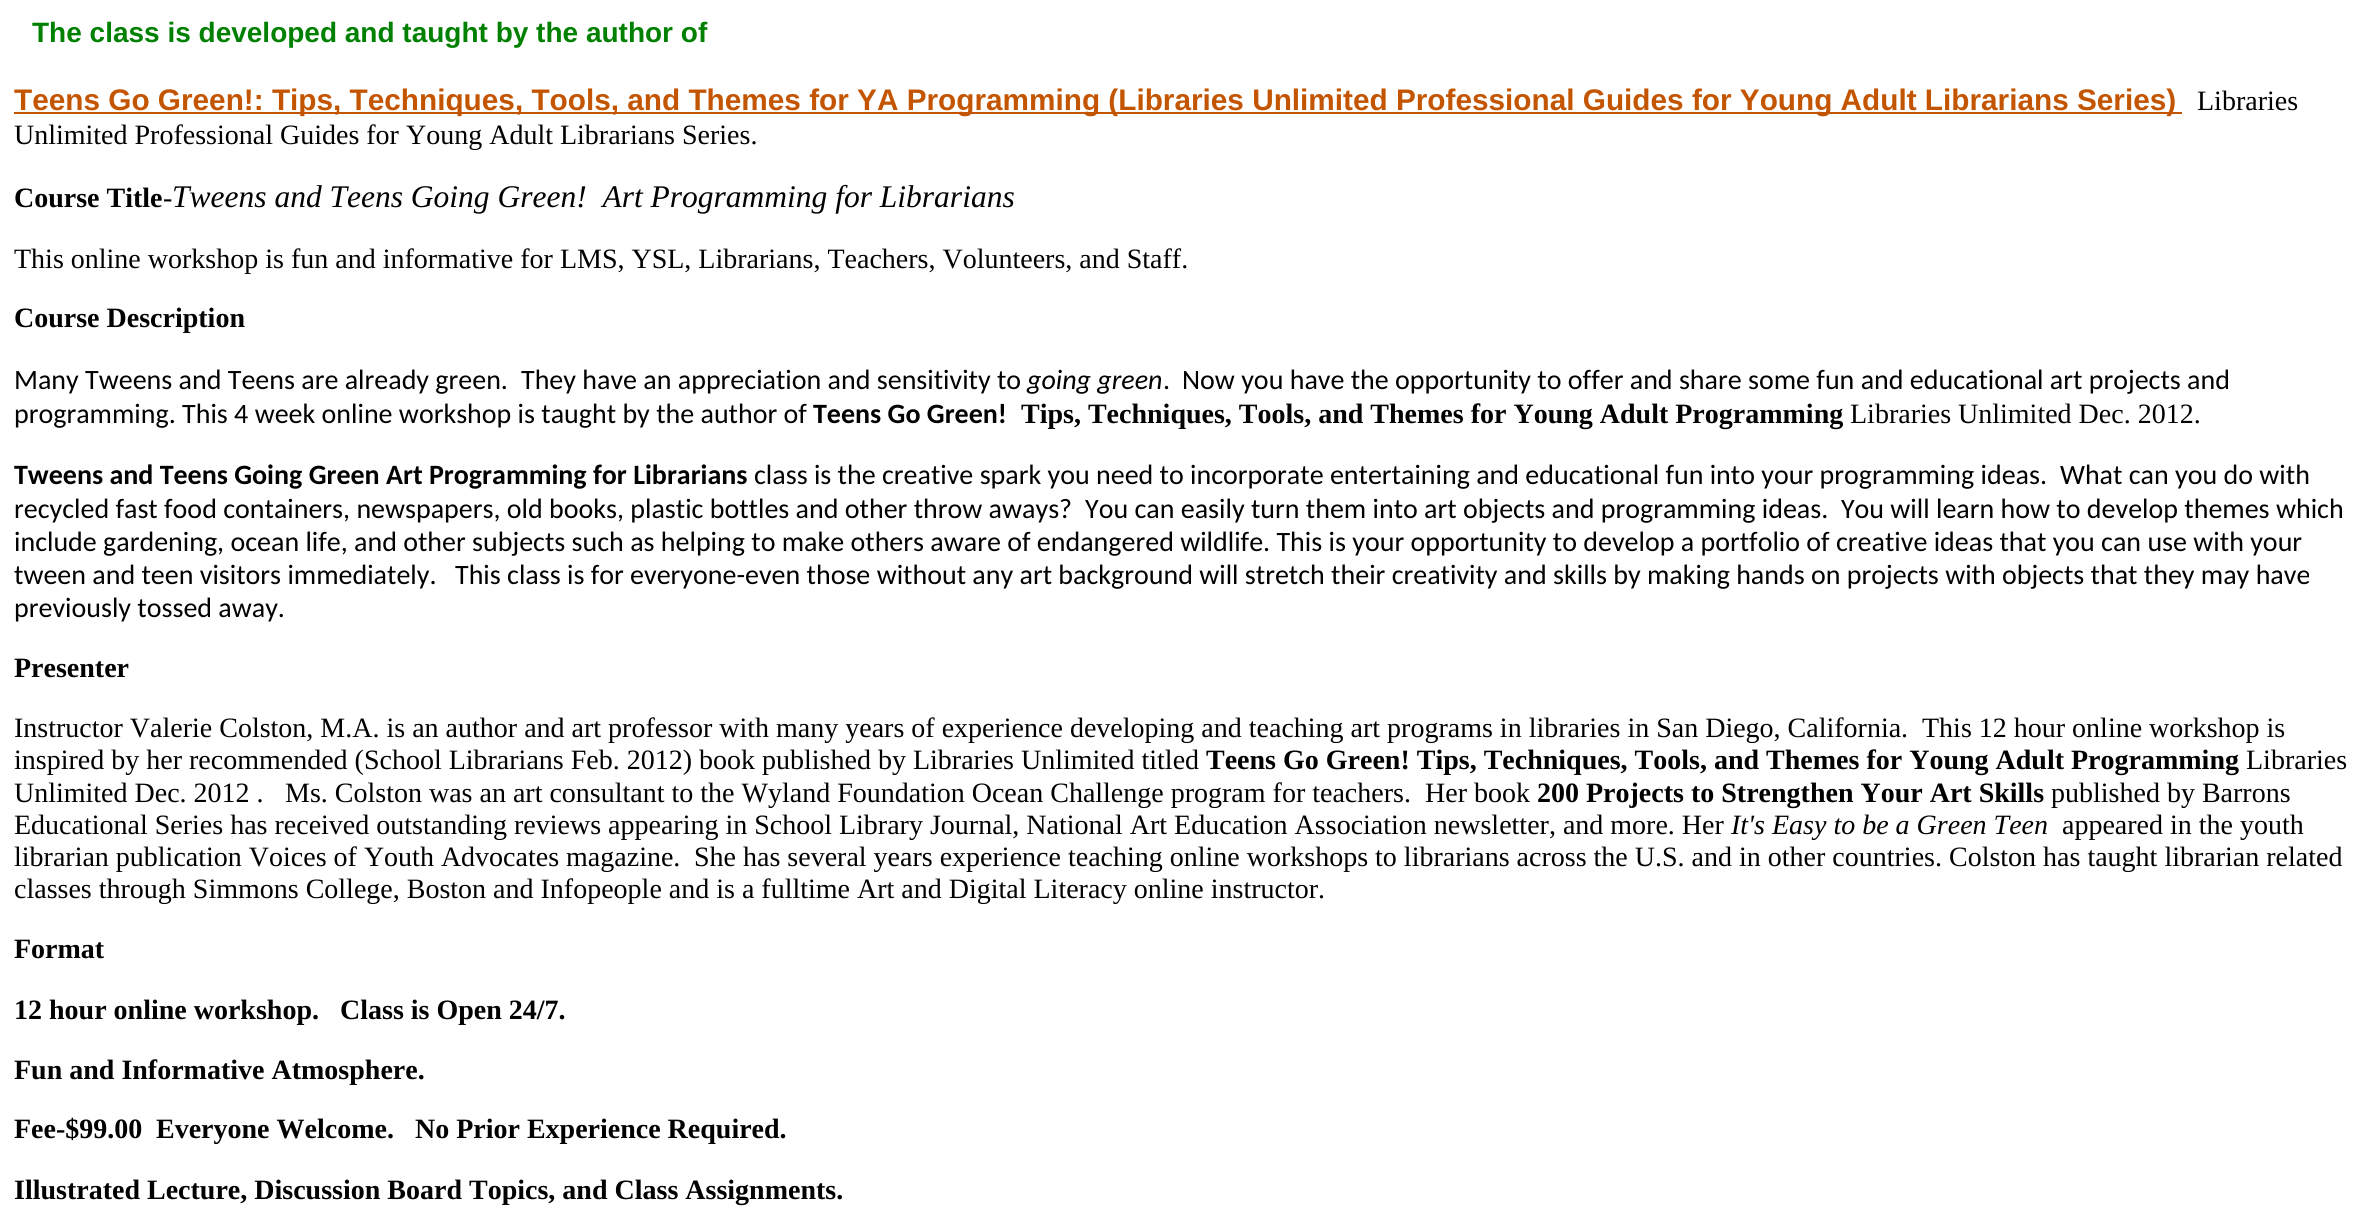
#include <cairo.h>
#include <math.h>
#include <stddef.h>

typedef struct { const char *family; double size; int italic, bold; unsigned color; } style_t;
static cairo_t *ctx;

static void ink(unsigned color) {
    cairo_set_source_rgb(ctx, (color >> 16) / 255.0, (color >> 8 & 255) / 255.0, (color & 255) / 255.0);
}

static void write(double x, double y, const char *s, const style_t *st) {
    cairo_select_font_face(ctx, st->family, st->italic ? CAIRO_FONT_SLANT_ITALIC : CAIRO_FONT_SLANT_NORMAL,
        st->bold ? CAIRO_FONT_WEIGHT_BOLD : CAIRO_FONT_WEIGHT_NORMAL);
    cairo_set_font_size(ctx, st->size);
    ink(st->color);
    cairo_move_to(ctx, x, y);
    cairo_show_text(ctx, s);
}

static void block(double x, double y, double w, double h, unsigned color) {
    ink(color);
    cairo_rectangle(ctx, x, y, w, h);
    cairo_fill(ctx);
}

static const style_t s1 = {"Liberation Sans", 28, 0, 1, 0x008000};
static const style_t s2 = {"Liberation Sans", 29.75, 0, 1, 0xc45500};
static const style_t s3 = {"Liberation Serif", 28, 0, 0, 0x000000};
static const style_t s4 = {"Liberation Serif", 28, 0, 1, 0x000000};
static const style_t s5 = {"Liberation Serif", 31.5, 1, 0, 0x000000};
static const style_t s6 = {"Carlito", 28, 0, 0, 0x000000};
static const style_t s7 = {"Carlito", 28, 1, 0, 0x000000};
static const style_t s8 = {"Carlito", 28, 0, 1, 0x000000};
static const style_t s9 = {"Liberation Serif", 28, 1, 0, 0x000000};

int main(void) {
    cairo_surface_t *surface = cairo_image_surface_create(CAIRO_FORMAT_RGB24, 2361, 1232);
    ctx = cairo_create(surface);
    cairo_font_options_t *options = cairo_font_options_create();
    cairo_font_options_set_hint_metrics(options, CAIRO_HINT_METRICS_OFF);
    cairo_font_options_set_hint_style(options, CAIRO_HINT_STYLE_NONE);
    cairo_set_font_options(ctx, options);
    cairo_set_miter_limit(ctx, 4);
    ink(0xffffff);
    cairo_paint(ctx);
    write(32, 42, "The class is developed and taught by the author of", &s1);
    block(14, 112, 2168, 2, 0xc45500);
    write(14, 110, "Teens Go Green!: Tips, Techniques, Tools, and Themes for YA Programming (Libraries Unlimited Professional Guides for Young Adult Librarians Series)", &s2);
    write(2197, 110, "Libraries", &s3);
    write(14, 144, "Unlimited Professional Guides for Young Adult Librarians Series.", &s3);
    write(14, 207, "Course Title", &s4);
    write(163, 207, "-", &s3);
    write(172, 207, "Tweens and Teens Going Green!  Art Programming for Librarians", &s5);
    write(14, 268, "This online workshop is fun and informative for LMS, YSL, Librarians, Teachers, Volunteers, and Staff.", &s3);
    write(14, 327, "Course Description", &s4);
    write(14, 389, "Many Tweens and Teens are already green.", &s6);
    write(521, 389, "They have an appreciation and sensitivity to", &s6);
    write(1027, 389, "going green", &s7);
    write(1163, 389, ".", &s6);
    write(1182, 389, "Now you have the opportunity to offer and share some fun and educational art projects and", &s6);
    write(14, 423, "programming. This 4 week online workshop is taught by the author of", &s6);
    write(813, 423, "Teens Go Green!", &s8);
    write(1021, 423, "Tips, Techniques, Tools, and Themes for Young Adult Programming", &s4);
    write(1850, 423, "Libraries Unlimited Dec. 2012.", &s3);
    write(14, 484, "Tweens and Teens Going Green Art Programming for Librarians", &s8);
    write(754, 484, "class is the creative spark you need to incorporate entertaining and educational fun into your programming ideas.", &s6);
    write(2060, 484, "What can you do with", &s6);
    write(14, 518, "recycled fast food containers, newspapers, old books, plastic bottles and other throw aways?", &s6);
    write(1085, 518, "You can easily turn them into art objects and programming ideas.  You will learn how to develop themes which", &s6);
    write(14, 551, "include gardening, ocean life, and other subjects such as helping to make others aware of endangered wildlife. This is your opportunity to develop a portfolio of creative ideas that you can use with your", &s6);
    write(14, 584, "tween and teen visitors immediately.", &s6);
    write(455, 584, "This class is for everyone-even those without any art background will stretch their creativity and skills by making hands on projects with objects that they may have", &s6);
    write(14, 617, "previously tossed away.", &s6);
    write(14, 677, "Presenter", &s4);
    write(14, 737, "Instructor Valerie Colston, M.A. is an author and art professor with many years of experience developing and teaching art programs in libraries in San Diego, California.", &s3);
    write(1922, 737, "This 12 hour online workshop is", &s3);
    write(14, 769, "inspired by her recommended (School Librarians Feb. 2012) book published by Libraries Unlimited titled", &s3);
    write(1206, 769, "Teens Go Green! Tips, Techniques, Tools, and Themes for Young Adult Programming", &s4);
    write(2246, 769, "Libraries", &s3);
    write(14, 802, "Unlimited Dec. 2012 .", &s3);
    write(285, 802, "Ms. Colston was an art consultant to the Wyland Foundation Ocean Challenge program for teachers.", &s3);
    write(1425, 802, "Her book", &s3);
    write(1537, 802, "200 Projects to Strengthen Your Art Skills", &s4);
    write(2051, 802, "published by Barrons", &s3);
    write(14, 834, "Educational Series has received outstanding reviews appearing in School Library Journal, National Art Education Association newsletter, and more. Her", &s3);
    write(1731, 834, "It's Easy to be a Green Teen", &s9);
    write(2062, 834, "appeared in the youth", &s3);
    write(14, 866, "librarian publication Voices of Youth Advocates magazine.", &s3);
    write(694, 866, "She has several years experience teaching online workshops to librarians across the U.S. and in other countries. Colston has taught librarian related", &s3);
    write(14, 898, "classes through Simmons College, Boston and Infopeople and is a fulltime Art and Digital Literacy online instructor.", &s3);
    write(14, 958, "Format", &s4);
    write(14, 1019, "12 hour online workshop.", &s4);
    write(340, 1019, "Class is Open 24/7.", &s4);
    write(14, 1079, "Fun and Informative Atmosphere.", &s4);
    write(14, 1138, "Fee-$99.00", &s4);
    write(156, 1138, "Everyone Welcome.   No Prior Experience Required.", &s4);
    write(14, 1199, "Illustrated Lecture, Discussion Board Topics, and Class Assignments.", &s4);
    cairo_surface_write_to_png(surface, "screenshot.png");
    cairo_font_options_destroy(options);
    cairo_destroy(ctx);
    cairo_surface_destroy(surface);
    return 0;
}
